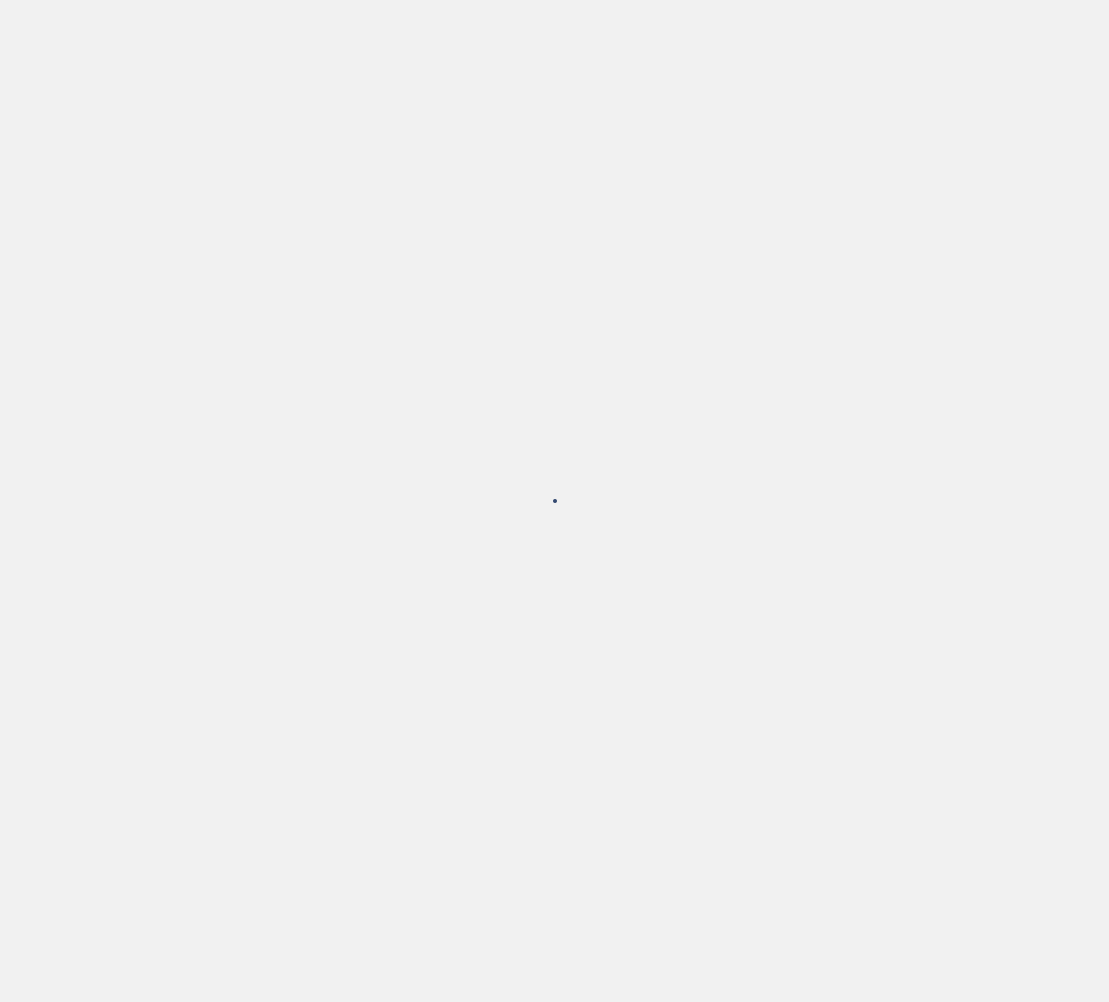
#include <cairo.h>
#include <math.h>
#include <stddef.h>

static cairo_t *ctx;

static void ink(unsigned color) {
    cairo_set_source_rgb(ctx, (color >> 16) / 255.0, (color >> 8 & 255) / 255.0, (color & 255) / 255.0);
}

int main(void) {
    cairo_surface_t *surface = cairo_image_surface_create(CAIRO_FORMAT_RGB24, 1109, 1002);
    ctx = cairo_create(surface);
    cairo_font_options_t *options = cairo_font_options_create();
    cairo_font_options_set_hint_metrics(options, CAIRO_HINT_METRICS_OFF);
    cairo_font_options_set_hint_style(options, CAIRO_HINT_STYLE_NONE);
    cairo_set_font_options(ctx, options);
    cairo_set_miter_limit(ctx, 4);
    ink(0xf1f1f1);
    cairo_paint(ctx);
    ink(0x344a71);
    cairo_arc(ctx, 555, 501, 2, 0, 2 * M_PI);
    cairo_fill(ctx);
    cairo_surface_write_to_png(surface, "screenshot.png");
    cairo_font_options_destroy(options);
    cairo_destroy(ctx);
    cairo_surface_destroy(surface);
    return 0;
}
